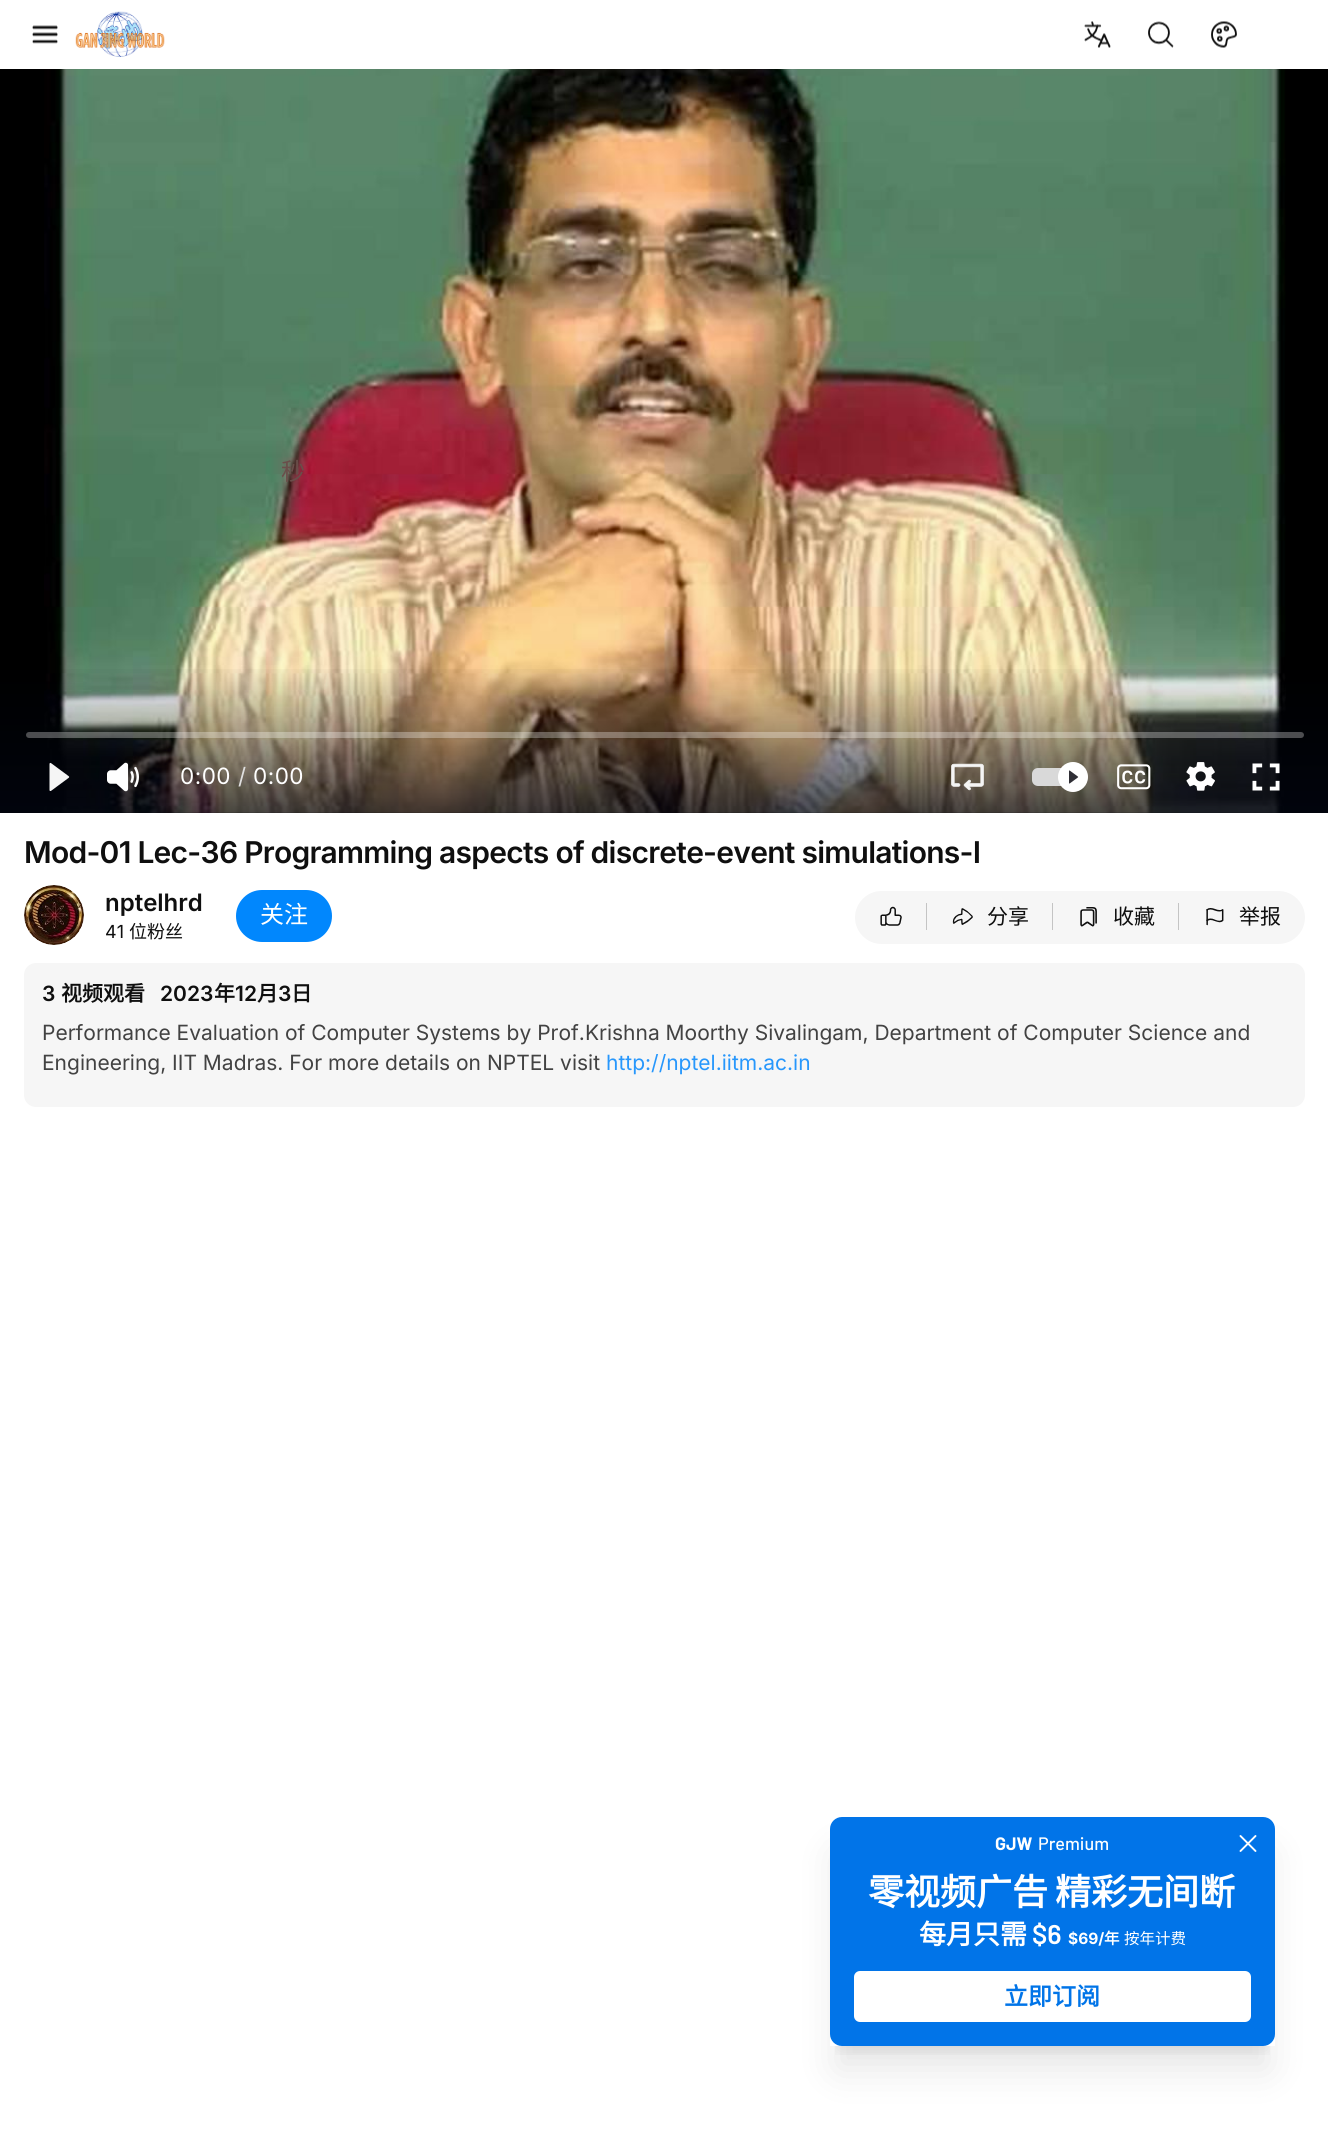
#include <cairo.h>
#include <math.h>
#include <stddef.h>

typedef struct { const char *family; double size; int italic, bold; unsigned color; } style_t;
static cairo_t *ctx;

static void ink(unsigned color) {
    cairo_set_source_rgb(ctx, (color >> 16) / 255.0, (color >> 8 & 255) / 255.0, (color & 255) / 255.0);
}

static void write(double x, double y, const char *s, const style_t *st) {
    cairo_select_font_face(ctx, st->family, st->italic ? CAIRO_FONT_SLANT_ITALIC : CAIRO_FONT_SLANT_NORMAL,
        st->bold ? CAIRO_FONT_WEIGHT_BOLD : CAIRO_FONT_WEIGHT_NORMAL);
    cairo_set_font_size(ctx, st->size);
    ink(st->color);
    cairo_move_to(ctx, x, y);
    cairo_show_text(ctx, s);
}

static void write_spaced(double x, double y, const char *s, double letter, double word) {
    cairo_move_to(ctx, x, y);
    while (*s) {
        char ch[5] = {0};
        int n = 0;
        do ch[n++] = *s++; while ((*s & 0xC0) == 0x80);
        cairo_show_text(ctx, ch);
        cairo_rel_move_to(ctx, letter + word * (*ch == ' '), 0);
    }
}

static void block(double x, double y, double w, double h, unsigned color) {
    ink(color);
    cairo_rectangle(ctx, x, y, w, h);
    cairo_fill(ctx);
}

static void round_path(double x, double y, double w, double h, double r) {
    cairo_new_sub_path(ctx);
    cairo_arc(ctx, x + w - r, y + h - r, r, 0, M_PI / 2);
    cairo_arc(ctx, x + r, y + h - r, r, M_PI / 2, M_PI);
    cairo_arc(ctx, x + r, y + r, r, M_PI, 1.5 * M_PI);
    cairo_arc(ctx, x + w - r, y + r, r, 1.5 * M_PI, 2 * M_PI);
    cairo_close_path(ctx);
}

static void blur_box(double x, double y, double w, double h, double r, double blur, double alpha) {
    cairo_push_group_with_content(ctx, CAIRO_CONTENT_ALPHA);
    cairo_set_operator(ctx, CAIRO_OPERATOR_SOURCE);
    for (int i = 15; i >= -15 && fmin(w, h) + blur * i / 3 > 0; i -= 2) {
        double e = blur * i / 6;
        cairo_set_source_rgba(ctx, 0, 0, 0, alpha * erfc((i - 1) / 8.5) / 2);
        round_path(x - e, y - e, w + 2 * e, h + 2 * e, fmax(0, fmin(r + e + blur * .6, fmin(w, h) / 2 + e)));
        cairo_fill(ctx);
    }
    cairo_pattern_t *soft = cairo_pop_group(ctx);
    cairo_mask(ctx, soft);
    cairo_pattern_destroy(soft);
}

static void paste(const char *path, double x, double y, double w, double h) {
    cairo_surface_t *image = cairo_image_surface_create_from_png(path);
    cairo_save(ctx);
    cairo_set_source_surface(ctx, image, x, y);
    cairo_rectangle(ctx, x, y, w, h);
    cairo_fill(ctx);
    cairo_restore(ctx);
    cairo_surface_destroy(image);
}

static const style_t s1 = {"Noto Sans CJK SC", 24, 0, 0, 0x6a4e4a};
static const style_t s2 = {"Inter", 22.5, 0, 0, 0xe0e0e0};
static const style_t s3 = {"Inter SemiBold", 24, 0, 0, 0x0f0f0f};
static const style_t s4 = {"Inter", 18, 0, 0, 0x0f0f0f};
static const style_t s5 = {"Noto Sans CJK SC", 18, 0, 0, 0x0f0f0f};
static const style_t s6 = {"Noto Sans CJK SC", 24, 0, 0, 0xffffff};
static const style_t s7 = {"Noto Sans CJK SC", 21, 0, 0, 0x0f0f0f};
static const style_t s8 = {"Inter SemiBold", 21, 0, 0, 0x0f0f0f};
static const style_t s9 = {"Noto Sans CJK SC", 21, 0, 1, 0x0f0f0f};
static const style_t s10 = {"Inter", 21, 0, 0, 0x424242};
static const style_t s11 = {"Inter", 21, 0, 0, 0x2797fc};
static const style_t s12 = {"Barlow", 18, 0, 1, 0xffffff};
static const style_t s13 = {"Barlow Medium", 18, 0, 0, 0xffffff};
static const style_t s14 = {"Noto Sans CJK SC", 27, 0, 1, 0xffffff};
static const style_t s15 = {"Barlow SemiBold", 27, 0, 0, 0xffffff};
static const style_t s16 = {"Inter", 15.5, 0, 1, 0xffffff};
static const style_t s17 = {"Noto Sans CJK SC", 15.5, 0, 1, 0xffffff};
static const style_t s18 = {"Noto Sans CJK SC", 15.5, 0, 0, 0xffffff};
static const style_t s19 = {"Noto Sans CJK SC", 24, 0, 1, 0x0074e8};

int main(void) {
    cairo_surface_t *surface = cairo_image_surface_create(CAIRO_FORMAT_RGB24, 1328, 2129);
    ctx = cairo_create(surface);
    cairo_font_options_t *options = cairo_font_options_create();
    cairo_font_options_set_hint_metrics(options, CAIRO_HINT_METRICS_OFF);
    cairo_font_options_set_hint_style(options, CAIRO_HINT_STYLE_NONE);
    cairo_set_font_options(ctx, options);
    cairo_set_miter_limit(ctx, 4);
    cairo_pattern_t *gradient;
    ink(0xffffff);
    cairo_paint(ctx);
    paste("pic1.png", 32, 25, 26, 19);
    paste("pic2.png", 75, 11, 90, 46);
    paste("pic3.png", 1084, 21, 27, 27);
    paste("pic4.png", 1148, 21, 26, 27);
    paste("pic5.png", 1211, 21, 26, 27);
    block(0, 69, 1328, 744, 0x000000);
    paste("pic6.png", 44, 69, 1242, 744);
    write(281, 480, "秒", &s1);
    gradient = cairo_pattern_create_linear(665, 813, 665, 69);
    cairo_pattern_add_color_stop_rgba(gradient, 0, 0.004, 0.02, 0.067, 0.72);
    cairo_pattern_add_color_stop_rgba(gradient, 0.2, 0.004, 0.02, 0.067, 0);
    cairo_set_source(ctx, gradient);
    cairo_pattern_destroy(gradient);
    cairo_rectangle(ctx, 0, 669, 1328, 144);
    cairo_fill(ctx);
    cairo_set_source_rgba(ctx, 1, 1, 1, 0.3);
    round_path(26, 732, 1278, 6, 3);
    cairo_fill(ctx);
    paste("pic7.png", 49, 762, 21, 29);
    paste("pic8.png", 107, 762, 32, 30);
    cairo_select_font_face(ctx, "Inter", CAIRO_FONT_SLANT_NORMAL, CAIRO_FONT_WEIGHT_NORMAL);
    cairo_set_font_size(ctx, 22.5);
    ink(0xffffff);
    write_spaced(180, 784, "0:00", 0.5, 0);
    write(238, 784, "/", &s2);
    ink(0xffffff);
    write_spaced(253, 784, "0:00", 0.5, 0);
    paste("pic9.png", 951, 763, 33, 28);
    ink(0xd9d9d9);
    round_path(1032, 768, 41, 18, 6);
    cairo_fill(ctx);
    ink(0xffffff);
    cairo_arc(ctx, 1073, 777, 15, 0, 2 * M_PI);
    cairo_fill(ctx);
    paste("pic10.png", 1069, 770, 10, 14);
    paste("pic11.png", 1117, 764, 34, 26);
    paste("pic12.png", 1186, 762, 29, 29);
    paste("pic13.png", 1252, 763, 28, 28);
    cairo_select_font_face(ctx, "Inter SemiBold", CAIRO_FONT_SLANT_NORMAL, CAIRO_FONT_WEIGHT_NORMAL);
    cairo_set_font_size(ctx, 30);
    ink(0x0f0f0f);
    write_spaced(24, 863, "Mod-01 Lec-36 Programming aspects of discrete-event simulations-I", -0.75, 0);
    paste("pic14.png", 24, 885, 60, 60);
    write(105, 911, "nptelhrd", &s3);
    write(105, 938, "41", &s4);
    write(129, 938, "位粉丝", &s5);
    ink(0x0187fd);
    round_path(236, 890, 96, 52, 26);
    cairo_fill(ctx);
    write(260, 923, "关注", &s6);
    ink(0xf6f6f6);
    cairo_new_path(ctx);
    cairo_move_to(ctx, 881.5, 891);
    cairo_line_to(ctx, 927, 891);
    cairo_line_to(ctx, 927, 944);
    cairo_line_to(ctx, 881.5, 944);
    cairo_curve_to(ctx, 867, 944, 855, 932, 855, 917.5);
    cairo_curve_to(ctx, 855, 903, 867, 891, 881.5, 891);
    cairo_close_path(ctx);
    cairo_fill(ctx);
    paste("pic15.png", 880, 906, 22, 20);
    block(926, 903, 1, 27, 0xc4c4c4);
    block(927, 891, 252, 53, 0xf6f6f6);
    paste("pic16.png", 952, 908, 21, 17);
    write(987, 924, "分享", &s7);
    block(1052, 903, 1, 27, 0xc4c4c4);
    paste("pic17.png", 1080, 907, 17, 20);
    write(1113, 924, "收藏", &s7);
    block(1178, 903, 1, 27, 0xc4c4c4);
    ink(0xf6f6f6);
    cairo_new_path(ctx);
    cairo_move_to(ctx, 1179, 891);
    cairo_line_to(ctx, 1278.5, 891);
    cairo_curve_to(ctx, 1293, 891, 1305, 903, 1305, 917.5);
    cairo_curve_to(ctx, 1305, 932, 1293, 944, 1278.5, 944);
    cairo_line_to(ctx, 1179, 944);
    cairo_close_path(ctx);
    cairo_fill(ctx);
    paste("pic18.png", 1206, 908, 18, 18);
    write(1239, 924, "举报", &s7);
    ink(0xf6f6f6);
    round_path(24, 963, 1281, 144, 12);
    cairo_fill(ctx);
    write(42, 1001, "3", &s8);
    write(61, 1001, "视频观看", &s9);
    write(160, 1001, "2023", &s8);
    write(214, 1001, "年", &s9);
    write(235, 1001, "12", &s8);
    write(257, 1001, "月", &s9);
    write(278, 1001, "3", &s8);
    write(291, 1001, "日", &s9);
    write(42, 1040, "Performance Evaluation of Computer Systems by Prof.Krishna Moorthy Sivalingam, Department of Computer Science and", &s10);
    write(42, 1070, "Engineering, IIT Madras. For more details on NPTEL visit", &s10);
    write(606, 1070, "http://nptel.iitm.ac.in", &s11);
    ink(0x0174e8);
    round_path(830, 1817, 445, 229, 12);
    cairo_fill(ctx);
    cairo_save(ctx);
    cairo_rectangle(ctx, 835, 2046, 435, 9);
    cairo_clip(ctx);
    ink(0x000000);
    blur_box(839, 1838, 427, 211, 0, 7.5, 0.1);
    cairo_restore(ctx);
    cairo_save(ctx);
    cairo_set_fill_rule(ctx, CAIRO_FILL_RULE_EVEN_ODD);
    cairo_new_path(ctx);
    cairo_move_to(ctx, 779, 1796);
    cairo_line_to(ctx, 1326, 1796);
    cairo_line_to(ctx, 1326, 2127);
    cairo_line_to(ctx, 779, 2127);
    cairo_close_path(ctx);
    cairo_move_to(ctx, 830, 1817);
    cairo_line_to(ctx, 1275, 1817);
    cairo_line_to(ctx, 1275, 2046);
    cairo_line_to(ctx, 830, 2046);
    cairo_close_path(ctx);
    cairo_clip(ctx);
    ink(0x000000);
    blur_box(837, 1854, 431, 215, 0, 19, 0.1);
    cairo_restore(ctx);
    write(995, 1850, "GJW", &s12);
    write(1038, 1850, "Premium", &s13);
    cairo_select_font_face(ctx, "Noto Sans CJK SC", CAIRO_FONT_SLANT_NORMAL, CAIRO_FONT_WEIGHT_BOLD);
    cairo_set_font_size(ctx, 36);
    write_spaced(868, 1905, "零视频广告 精彩无间断", 0, -1);
    write(919, 1944, "每月只需", &s14);
    write(1032, 1944, "$6", &s15);
    write(1068, 1944, "$69/", &s16);
    write(1104, 1944, "年", &s17);
    write(1124, 1944, "按年计费", &s18);
    round_path(854, 1971, 397, 51, 6);
    cairo_fill(ctx);
    write(1004, 2005, "立即订阅", &s19);
    cairo_new_path(ctx);
    cairo_move_to(ctx, 1240.5, 1851);
    cairo_line_to(ctx, 1255.5, 1836);
    cairo_move_to(ctx, 1240.5, 1836);
    cairo_line_to(ctx, 1255.5, 1851);
    ink(0xffffff);
    cairo_set_line_width(ctx, 1.9);
    cairo_set_line_cap(ctx, CAIRO_LINE_CAP_ROUND);
    cairo_set_line_join(ctx, CAIRO_LINE_JOIN_ROUND);
    cairo_stroke(ctx);
    cairo_surface_write_to_png(surface, "screenshot.png");
    cairo_font_options_destroy(options);
    cairo_destroy(ctx);
    cairo_surface_destroy(surface);
    return 0;
}
